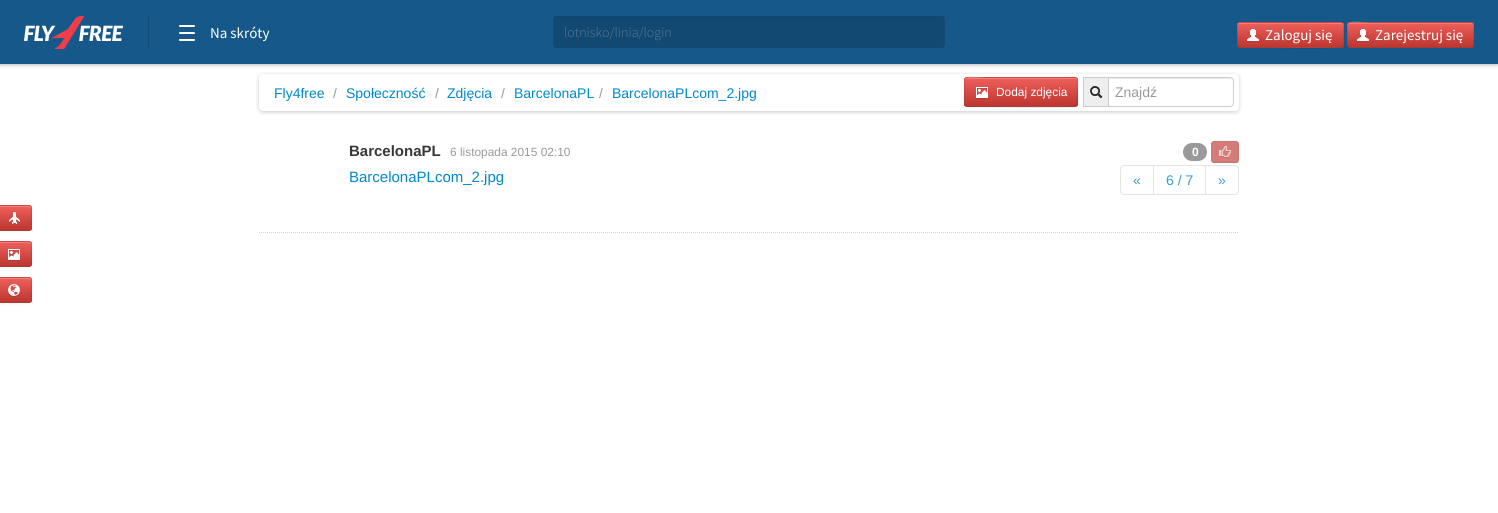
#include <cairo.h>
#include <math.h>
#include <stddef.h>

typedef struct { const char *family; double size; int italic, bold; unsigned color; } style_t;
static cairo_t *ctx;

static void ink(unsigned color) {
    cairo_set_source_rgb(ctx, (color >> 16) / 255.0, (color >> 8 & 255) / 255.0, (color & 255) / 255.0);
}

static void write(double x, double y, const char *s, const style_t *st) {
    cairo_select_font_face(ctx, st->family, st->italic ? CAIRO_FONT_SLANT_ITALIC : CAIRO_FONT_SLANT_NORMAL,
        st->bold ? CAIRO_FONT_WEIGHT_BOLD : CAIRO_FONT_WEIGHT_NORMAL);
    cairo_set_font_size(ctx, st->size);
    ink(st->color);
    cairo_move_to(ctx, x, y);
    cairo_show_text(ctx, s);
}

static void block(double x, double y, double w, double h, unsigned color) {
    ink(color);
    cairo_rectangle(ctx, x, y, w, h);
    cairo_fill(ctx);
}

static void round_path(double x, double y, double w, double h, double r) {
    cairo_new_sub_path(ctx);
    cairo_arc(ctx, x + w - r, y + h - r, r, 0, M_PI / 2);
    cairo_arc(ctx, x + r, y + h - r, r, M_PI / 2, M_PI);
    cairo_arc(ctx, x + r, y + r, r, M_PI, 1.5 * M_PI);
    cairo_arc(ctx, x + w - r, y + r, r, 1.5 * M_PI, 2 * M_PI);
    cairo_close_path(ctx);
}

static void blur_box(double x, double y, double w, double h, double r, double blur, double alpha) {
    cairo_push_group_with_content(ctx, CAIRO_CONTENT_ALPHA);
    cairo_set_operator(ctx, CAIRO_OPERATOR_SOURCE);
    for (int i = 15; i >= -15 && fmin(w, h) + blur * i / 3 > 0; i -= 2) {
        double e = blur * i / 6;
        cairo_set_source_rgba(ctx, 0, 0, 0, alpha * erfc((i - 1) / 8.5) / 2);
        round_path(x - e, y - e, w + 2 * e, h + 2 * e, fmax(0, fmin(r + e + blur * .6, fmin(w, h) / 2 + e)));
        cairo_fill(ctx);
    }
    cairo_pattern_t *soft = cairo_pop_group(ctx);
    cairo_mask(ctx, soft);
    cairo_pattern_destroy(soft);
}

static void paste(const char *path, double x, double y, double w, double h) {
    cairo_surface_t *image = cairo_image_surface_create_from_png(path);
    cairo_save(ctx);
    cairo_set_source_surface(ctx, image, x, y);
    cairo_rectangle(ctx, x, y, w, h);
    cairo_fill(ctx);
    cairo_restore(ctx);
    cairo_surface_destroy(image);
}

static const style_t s1 = {"Source Sans Pro", 15, 0, 0, 0xffffff};
static const style_t s2 = {"Source Sans Pro Light", 14, 0, 0, 0x5e7a8f};
static const style_t s3 = {"Liberation Sans", 14, 0, 0, 0x0088cc};
static const style_t s4 = {"Liberation Sans", 14, 0, 0, 0x999999};
static const style_t s5 = {"Liberation Sans", 11.9, 0, 0, 0xffffff};
static const style_t s6 = {"Liberation Sans", 15, 0, 1, 0x383838};
static const style_t s7 = {"Liberation Sans", 11.9, 0, 0, 0x999999};
static const style_t s8 = {"Liberation Sans", 12, 0, 1, 0xffffff};
static const style_t s9 = {"Liberation Sans", 15, 0, 0, 0x0088cc};
static const style_t s10 = {"Liberation Sans", 14, 0, 0, 0x33a0d6};

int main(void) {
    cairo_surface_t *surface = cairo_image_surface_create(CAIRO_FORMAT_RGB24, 1498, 513);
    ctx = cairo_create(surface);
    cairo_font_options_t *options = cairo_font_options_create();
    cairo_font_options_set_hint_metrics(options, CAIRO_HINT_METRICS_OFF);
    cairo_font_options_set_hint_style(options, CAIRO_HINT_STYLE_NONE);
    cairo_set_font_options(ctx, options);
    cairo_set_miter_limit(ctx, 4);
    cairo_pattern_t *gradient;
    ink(0xffffff);
    cairo_paint(ctx);
    ink(0x000000);
    blur_box(0, 0, 1498, 64, 0, 2.5, 0.4);
    block(0, 0, 1498, 64, 0x17588a);
    paste("pic1.png", 24, 16, 99, 33);
    block(148, 16, 1, 32, 0x134a74);
    ink(0xffffff);
    round_path(179, 39, 16, 2, 1);
    cairo_fill(ctx);
    round_path(179, 25, 16, 2, 1);
    cairo_fill(ctx);
    round_path(179, 32, 16, 2, 1);
    cairo_fill(ctx);
    write(210, 38, "Na skróty", &s1);
    ink(0x124973);
    round_path(553, 16, 392, 32, 3);
    cairo_fill(ctx);
    ink(0x11446a);
    cairo_new_path(ctx);
    cairo_move_to(ctx, 556, 18);
    cairo_line_to(ctx, 942, 18);
    cairo_curve_to(ctx, 943, 18, 944, 19, 944, 20);
    cairo_line_to(ctx, 944, 18);
    cairo_line_to(ctx, 942, 17);
    cairo_line_to(ctx, 555, 17);
    cairo_curve_to(ctx, 554, 18, 554, 19, 554, 20);
    cairo_curve_to(ctx, 554, 19, 555, 18, 556, 18);
    cairo_close_path(ctx);
    cairo_fill(ctx);
    write(564, 37, "lotnisko/linia/login", &s2);
    ink(0xda4f49);
    round_path(1237, 22, 107, 26, 3);
    cairo_fill(ctx);
    cairo_save(ctx);
    round_path(1237, 22, 107, 26, 3);
    cairo_clip(ctx);
    gradient = cairo_pattern_create_linear(1291, 23, 1291, 47);
    cairo_pattern_add_color_stop_rgba(gradient, 0, 0.933, 0.373, 0.357, 1);
    cairo_pattern_add_color_stop_rgba(gradient, 1, 0.741, 0.212, 0.184, 1);
    cairo_set_source(ctx, gradient);
    cairo_pattern_destroy(gradient);
    cairo_rectangle(ctx, 1237, 23, 107, 24);
    cairo_fill(ctx);
    cairo_restore(ctx);
    ink(0xf17e7b);
    cairo_new_path(ctx);
    cairo_move_to(ctx, 1240, 24);
    cairo_line_to(ctx, 1341, 24);
    cairo_curve_to(ctx, 1342, 24, 1343, 25, 1343, 26);
    cairo_curve_to(ctx, 1343, 25, 1343, 23, 1341, 23);
    cairo_line_to(ctx, 1240, 23);
    cairo_curve_to(ctx, 1238, 23, 1238, 25, 1238, 26);
    cairo_curve_to(ctx, 1238, 25, 1239, 24, 1240, 24);
    cairo_close_path(ctx);
    cairo_fill(ctx);
    cairo_new_path(ctx);
    cairo_move_to(ctx, 1343, 47);
    cairo_line_to(ctx, 1342.5, 47);
    cairo_curve_to(ctx, 1340.5, 48.5, 1265.5, 47.5, 1257, 47.5);
    cairo_line_to(ctx, 1240, 47.5);
    cairo_line_to(ctx, 1238, 47);
    cairo_set_source_rgba(ctx, 0, 0, 0, 0.25);
    cairo_set_line_width(ctx, 1);
    cairo_stroke(ctx);
    cairo_new_path(ctx);
    cairo_move_to(ctx, 1238, 47);
    cairo_curve_to(ctx, 1236.5, 45, 1237.5, 37.5, 1237.5, 35);
    cairo_curve_to(ctx, 1237.5, 18, 1236, 22.5, 1257, 22.5);
    cairo_line_to(ctx, 1324, 22.5);
    cairo_curve_to(ctx, 1345, 22.5, 1343.5, 18, 1343.5, 35);
    cairo_curve_to(ctx, 1343.5, 37.5, 1344.5, 45, 1343, 47);
    cairo_set_source_rgba(ctx, 0, 0, 0, 0.1);
    cairo_stroke(ctx);
    paste("pic2.png", 1247, 29, 12, 13);
    write(1265, 40, "Zaloguj się", &s1);
    ink(0xda4f49);
    round_path(1347, 22, 127, 26, 3);
    cairo_fill(ctx);
    cairo_save(ctx);
    round_path(1347, 22, 127, 26, 3);
    cairo_clip(ctx);
    gradient = cairo_pattern_create_linear(1411, 23, 1411, 47);
    cairo_pattern_add_color_stop_rgba(gradient, 0, 0.933, 0.373, 0.357, 1);
    cairo_pattern_add_color_stop_rgba(gradient, 1, 0.741, 0.212, 0.184, 1);
    cairo_set_source(ctx, gradient);
    cairo_pattern_destroy(gradient);
    cairo_rectangle(ctx, 1347, 23, 127, 24);
    cairo_fill(ctx);
    cairo_restore(ctx);
    cairo_set_source_rgba(ctx, 1, 1, 1, 0.2);
    cairo_new_path(ctx);
    cairo_move_to(ctx, 1350, 24);
    cairo_line_to(ctx, 1471, 24);
    cairo_line_to(ctx, 1473, 25);
    cairo_line_to(ctx, 1473, 26);
    cairo_curve_to(ctx, 1473, 25, 1473, 24, 1472, 23);
    cairo_line_to(ctx, 1370, 23);
    cairo_curve_to(ctx, 1364, 23, 1348, 18, 1348, 26);
    cairo_curve_to(ctx, 1348, 25, 1349, 24, 1350, 24);
    cairo_close_path(ctx);
    cairo_fill(ctx);
    cairo_new_path(ctx);
    cairo_move_to(ctx, 1473, 47);
    cairo_line_to(ctx, 1471, 47.5);
    cairo_line_to(ctx, 1350, 47.5);
    cairo_line_to(ctx, 1348, 47);
    cairo_set_source_rgba(ctx, 0, 0, 0, 0.25);
    cairo_stroke(ctx);
    cairo_new_path(ctx);
    cairo_move_to(ctx, 1348, 47);
    cairo_curve_to(ctx, 1346.5, 45, 1347.5, 37.5, 1347.5, 35);
    cairo_line_to(ctx, 1347.5, 28.5);
    cairo_curve_to(ctx, 1347.5, 26.5, 1347, 22.5, 1350, 22.5);
    cairo_line_to(ctx, 1471, 22.5);
    cairo_curve_to(ctx, 1474, 22.5, 1473.5, 26.5, 1473.5, 28.5);
    cairo_line_to(ctx, 1473.5, 35);
    cairo_curve_to(ctx, 1473.5, 37.5, 1474.5, 45, 1473, 47);
    cairo_set_source_rgba(ctx, 0, 0, 0, 0.1);
    cairo_stroke(ctx);
    paste("pic2.png", 1357, 29, 12, 13);
    write(1375, 40, "Zarejestruj się", &s1);
    cairo_save(ctx);
    cairo_set_fill_rule(ctx, CAIRO_FILL_RULE_EVEN_ODD);
    cairo_new_path(ctx);
    cairo_move_to(ctx, 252, 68);
    cairo_line_to(ctx, 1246, 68);
    cairo_line_to(ctx, 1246, 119);
    cairo_line_to(ctx, 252, 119);
    cairo_close_path(ctx);
    cairo_move_to(ctx, 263, 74);
    cairo_line_to(ctx, 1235, 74);
    cairo_curve_to(ctx, 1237, 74, 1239, 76, 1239, 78);
    cairo_line_to(ctx, 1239, 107);
    cairo_curve_to(ctx, 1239, 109, 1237, 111, 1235, 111);
    cairo_line_to(ctx, 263, 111);
    cairo_curve_to(ctx, 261, 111, 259, 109, 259, 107);
    cairo_line_to(ctx, 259, 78);
    cairo_curve_to(ctx, 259, 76, 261, 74, 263, 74);
    cairo_close_path(ctx);
    cairo_clip(ctx);
    ink(0x000000);
    blur_box(259, 75, 980, 37, 4, 2, 0.22);
    cairo_restore(ctx);
    write(274, 98, "Fly4free", &s3);
    write(333, 98, "/", &s4);
    write(346, 98, "Społeczność", &s3);
    write(435, 98, "/", &s4);
    write(447, 98, "Zdjęcia", &s3);
    write(501, 98, "/", &s4);
    write(514, 98, "BarcelonaPL", &s3);
    write(599, 98, "/", &s4);
    write(612, 98, "BarcelonaPLcom_2.jpg", &s3);
    ink(0x000000);
    blur_box(964, 78, 114, 30, 3, 1, 0.05);
    ink(0xda4f49);
    round_path(964, 77, 114, 30, 3);
    cairo_fill(ctx);
    cairo_save(ctx);
    round_path(964, 77, 114, 30, 3);
    cairo_clip(ctx);
    gradient = cairo_pattern_create_linear(1021, 78, 1021, 106);
    cairo_pattern_add_color_stop_rgba(gradient, 0, 0.933, 0.373, 0.357, 1);
    cairo_pattern_add_color_stop_rgba(gradient, 1, 0.741, 0.212, 0.184, 1);
    cairo_set_source(ctx, gradient);
    cairo_pattern_destroy(gradient);
    cairo_rectangle(ctx, 964, 78, 114, 28);
    cairo_fill(ctx);
    cairo_restore(ctx);
    cairo_set_source_rgba(ctx, 1, 1, 1, 0.2);
    cairo_new_path(ctx);
    cairo_move_to(ctx, 967, 79);
    cairo_line_to(ctx, 1075, 79);
    cairo_curve_to(ctx, 1076, 79, 1077, 80, 1077, 81);
    cairo_curve_to(ctx, 1077, 80, 1077, 78, 1075, 78);
    cairo_line_to(ctx, 985, 78);
    cairo_curve_to(ctx, 985, 78, 965, 73, 965, 81);
    cairo_curve_to(ctx, 965, 80, 966, 79, 967, 79);
    cairo_close_path(ctx);
    cairo_fill(ctx);
    cairo_new_path(ctx);
    cairo_move_to(ctx, 1077, 106);
    cairo_line_to(ctx, 1076.5, 106);
    cairo_curve_to(ctx, 1074.5, 107.5, 994, 106.5, 985, 106.5);
    cairo_line_to(ctx, 967, 106.5);
    cairo_line_to(ctx, 965, 106);
    cairo_set_source_rgba(ctx, 0, 0, 0, 0.25);
    cairo_stroke(ctx);
    cairo_new_path(ctx);
    cairo_move_to(ctx, 965, 106);
    cairo_curve_to(ctx, 963.5, 104, 964.5, 98, 964.5, 96);
    cairo_curve_to(ctx, 964.5, 73, 960, 77.5, 985, 77.5);
    cairo_line_to(ctx, 1057, 77.5);
    cairo_curve_to(ctx, 1082, 77.5, 1077.5, 73, 1077.5, 96);
    cairo_curve_to(ctx, 1077.5, 98, 1078.5, 104, 1077, 106);
    cairo_set_source_rgba(ctx, 0, 0, 0, 0.1);
    cairo_stroke(ctx);
    paste("pic3.png", 976, 87, 12, 12);
    write(996, 96, "Dodaj zdjęcia", &s5);
    ink(0xeeeeee);
    cairo_rectangle(ctx, 1083.5, 77.5, 25, 29);
    cairo_fill_preserve(ctx);
    ink(0xcccccc);
    cairo_stroke(ctx);
    paste("pic4.png", 1090, 86, 13, 13);
    ink(0xffffff);
    cairo_new_path(ctx);
    cairo_move_to(ctx, 1108, 77);
    cairo_line_to(ctx, 1230, 77);
    cairo_curve_to(ctx, 1232, 77, 1234, 79, 1234, 81);
    cairo_line_to(ctx, 1234, 103);
    cairo_curve_to(ctx, 1234, 105, 1232, 107, 1230, 107);
    cairo_line_to(ctx, 1108, 107);
    cairo_close_path(ctx);
    cairo_fill(ctx);
    ink(0xececec);
    cairo_new_path(ctx);
    cairo_move_to(ctx, 1109, 79);
    cairo_line_to(ctx, 1230, 79);
    cairo_curve_to(ctx, 1232, 79, 1233, 80, 1233, 82);
    cairo_line_to(ctx, 1233, 81);
    cairo_curve_to(ctx, 1233, 79, 1232, 78, 1230, 78);
    cairo_line_to(ctx, 1109, 78);
    cairo_close_path(ctx);
    cairo_fill(ctx);
    cairo_new_path(ctx);
    cairo_move_to(ctx, 1108.5, 77.5);
    cairo_line_to(ctx, 1230, 77.5);
    cairo_curve_to(ctx, 1232, 77.5, 1233.5, 79, 1233.5, 81);
    cairo_line_to(ctx, 1233.5, 103);
    cairo_curve_to(ctx, 1233.5, 105, 1232, 106.5, 1230, 106.5);
    cairo_line_to(ctx, 1108.5, 106.5);
    cairo_close_path(ctx);
    ink(0xcccccc);
    cairo_stroke(ctx);
    write(1115, 97, "Znajdź", &s4);
    cairo_new_path(ctx);
    cairo_move_to(ctx, 259, 232.5);
    cairo_line_to(ctx, 1239, 232.5);
    ink(0xd3d5d0);
    cairo_set_dash(ctx, (double[]){1, 1}, 2, 0);
    cairo_stroke(ctx);
    write(349, 156, "BarcelonaPL", &s6);
    write(450, 156, "6 listopada 2015 02:10", &s7);
    round_path(1183, 143, 24, 18, 9);
    cairo_fill(ctx);
    write(1192, 156, "0", &s8);
    ink(0xd47c78);
    round_path(1211, 141, 28, 22, 3);
    cairo_fill(ctx);
    cairo_new_path(ctx);
    cairo_move_to(ctx, 1238, 162);
    cairo_curve_to(ctx, 1237.5, 162, 1236.5, 162.5, 1236, 162.5);
    cairo_line_to(ctx, 1214, 162.5);
    cairo_curve_to(ctx, 1213.5, 162.5, 1212.5, 162, 1212, 162);
    cairo_set_source_rgba(ctx, 0.349, 0.349, 0.349, 0.25);
    cairo_set_dash(ctx, NULL, 0, 0);
    cairo_stroke(ctx);
    cairo_new_path(ctx);
    cairo_move_to(ctx, 1212, 162);
    cairo_curve_to(ctx, 1211, 160.5, 1211.5, 158.5, 1211.5, 157.5);
    cairo_line_to(ctx, 1211.5, 152);
    cairo_curve_to(ctx, 1211.5, 138.5, 1210.5, 141.5, 1225, 141.5);
    cairo_curve_to(ctx, 1239.5, 141.5, 1238.5, 138.5, 1238.5, 152);
    cairo_line_to(ctx, 1238.5, 157.5);
    cairo_curve_to(ctx, 1238.5, 158.5, 1239, 160.5, 1238, 162);
    cairo_set_source_rgba(ctx, 0.349, 0.349, 0.349, 0.1);
    cairo_stroke(ctx);
    paste("pic5.png", 1219, 146, 12, 12);
    write(349, 182, "BarcelonaPLcom_2.jpg", &s9);
    cairo_new_path(ctx);
    cairo_move_to(ctx, 1124, 165.5);
    cairo_line_to(ctx, 1153.5, 165.5);
    cairo_line_to(ctx, 1153.5, 194.5);
    cairo_line_to(ctx, 1124, 194.5);
    cairo_curve_to(ctx, 1122, 194.5, 1120.5, 193, 1120.5, 191);
    cairo_line_to(ctx, 1120.5, 169);
    cairo_curve_to(ctx, 1120.5, 167, 1122, 165.5, 1124, 165.5);
    cairo_close_path(ctx);
    ink(0xe4e4e4);
    cairo_stroke(ctx);
    write(1133, 185, "«", &s10);
    block(1154, 165, 52, 1, 0xe4e4e4);
    block(1205, 165, 1, 30, 0xe4e4e4);
    block(1154, 194, 52, 1, 0xe4e4e4);
    write(1166, 185, "6 / 7", &s10);
    ink(0xe4e4e4);
    cairo_set_fill_rule(ctx, CAIRO_FILL_RULE_EVEN_ODD);
    cairo_new_path(ctx);
    cairo_move_to(ctx, 1206, 165);
    cairo_line_to(ctx, 1235, 165);
    cairo_curve_to(ctx, 1237, 165, 1239, 167, 1239, 169);
    cairo_line_to(ctx, 1239, 191);
    cairo_curve_to(ctx, 1239, 193, 1237, 195, 1235, 195);
    cairo_line_to(ctx, 1206, 195);
    cairo_close_path(ctx);
    cairo_move_to(ctx, 1206, 166);
    cairo_line_to(ctx, 1235, 166);
    cairo_curve_to(ctx, 1236.5, 166, 1238, 167.5, 1238, 169);
    cairo_line_to(ctx, 1238, 191);
    cairo_curve_to(ctx, 1238, 192.5, 1236.5, 194, 1235, 194);
    cairo_line_to(ctx, 1206, 194);
    cairo_close_path(ctx);
    cairo_fill(ctx);
    write(1218, 185, "»", &s10);
    ink(0x000000);
    blur_box(-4, 206, 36, 26, 3, 1, 0.05);
    ink(0xda4f49);
    round_path(-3, 205, 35, 26, 3);
    cairo_fill(ctx);
    cairo_save(ctx);
    cairo_set_fill_rule(ctx, CAIRO_FILL_RULE_WINDING);
    round_path(-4, 205, 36, 26, 3);
    cairo_clip(ctx);
    gradient = cairo_pattern_create_linear(14, 206, 14, 230);
    cairo_pattern_add_color_stop_rgba(gradient, 0, 0.933, 0.373, 0.357, 1);
    cairo_pattern_add_color_stop_rgba(gradient, 1, 0.741, 0.212, 0.184, 1);
    cairo_set_source(ctx, gradient);
    cairo_pattern_destroy(gradient);
    cairo_rectangle(ctx, 0, 206, 32, 24);
    cairo_fill(ctx);
    cairo_restore(ctx);
    ink(0xf17e7b);
    cairo_set_fill_rule(ctx, CAIRO_FILL_RULE_WINDING);
    cairo_new_path(ctx);
    cairo_move_to(ctx, -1, 207);
    cairo_line_to(ctx, 29, 207);
    cairo_curve_to(ctx, 30, 207, 31, 208, 31, 209);
    cairo_curve_to(ctx, 31, 204.5, 28, 206, 24, 206);
    cairo_line_to(ctx, 4, 206);
    cairo_curve_to(ctx, 0, 206, -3, 204.5, -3, 209);
    cairo_curve_to(ctx, -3, 208, -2, 207, -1, 207);
    cairo_close_path(ctx);
    cairo_fill(ctx);
    cairo_new_path(ctx);
    cairo_move_to(ctx, 31, 230);
    cairo_curve_to(ctx, 30.5, 230, 29.5, 230.5, 29, 230.5);
    cairo_line_to(ctx, -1, 230.5);
    cairo_curve_to(ctx, -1.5, 230.5, -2.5, 230, -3, 230);
    cairo_set_source_rgba(ctx, 0, 0, 0, 0.25);
    cairo_stroke(ctx);
    cairo_new_path(ctx);
    cairo_move_to(ctx, -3, 230);
    cairo_curve_to(ctx, -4, 228.5, -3.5, 226, -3.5, 224.5);
    cairo_line_to(ctx, -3.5, 211.5);
    cairo_curve_to(ctx, -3.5, 204.5, -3, 205.5, 4, 205.5);
    cairo_line_to(ctx, 24, 205.5);
    cairo_curve_to(ctx, 31, 205.5, 31.5, 204.5, 31.5, 211.5);
    cairo_line_to(ctx, 31.5, 224.5);
    cairo_curve_to(ctx, 31.5, 226, 32, 228.5, 31, 230);
    cairo_set_source_rgba(ctx, 0, 0, 0, 0.1);
    cairo_stroke(ctx);
    paste("pic6.png", 9, 212, 11, 13);
    ink(0x000000);
    blur_box(-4, 242, 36, 26, 3, 1, 0.05);
    ink(0xda4f49);
    round_path(-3, 241, 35, 26, 3);
    cairo_fill(ctx);
    cairo_save(ctx);
    round_path(-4, 241, 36, 26, 3);
    cairo_clip(ctx);
    gradient = cairo_pattern_create_linear(14, 242, 14, 266);
    cairo_pattern_add_color_stop_rgba(gradient, 0, 0.933, 0.373, 0.357, 1);
    cairo_pattern_add_color_stop_rgba(gradient, 1, 0.741, 0.212, 0.184, 1);
    cairo_set_source(ctx, gradient);
    cairo_pattern_destroy(gradient);
    cairo_rectangle(ctx, 0, 242, 32, 24);
    cairo_fill(ctx);
    cairo_restore(ctx);
    ink(0xf17e7b);
    cairo_new_path(ctx);
    cairo_move_to(ctx, -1, 243);
    cairo_line_to(ctx, 29, 243);
    cairo_curve_to(ctx, 30, 243, 31, 244, 31, 245);
    cairo_curve_to(ctx, 31, 240.5, 28, 242, 24, 242);
    cairo_line_to(ctx, 4, 242);
    cairo_curve_to(ctx, 0, 242, -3, 240.5, -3, 245);
    cairo_curve_to(ctx, -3, 244, -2, 243, -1, 243);
    cairo_close_path(ctx);
    cairo_fill(ctx);
    cairo_new_path(ctx);
    cairo_move_to(ctx, 31, 266);
    cairo_curve_to(ctx, 30.5, 266, 29.5, 266.5, 29, 266.5);
    cairo_line_to(ctx, -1, 266.5);
    cairo_curve_to(ctx, -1.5, 266.5, -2.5, 266, -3, 266);
    cairo_set_source_rgba(ctx, 0, 0, 0, 0.25);
    cairo_stroke(ctx);
    cairo_new_path(ctx);
    cairo_move_to(ctx, -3, 266);
    cairo_curve_to(ctx, -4, 264.5, -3.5, 262, -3.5, 260.5);
    cairo_line_to(ctx, -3.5, 247.5);
    cairo_curve_to(ctx, -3.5, 240.5, -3, 241.5, 4, 241.5);
    cairo_line_to(ctx, 24, 241.5);
    cairo_curve_to(ctx, 31, 241.5, 31.5, 240.5, 31.5, 247.5);
    cairo_line_to(ctx, 31.5, 260.5);
    cairo_curve_to(ctx, 31.5, 262, 32, 264.5, 31, 266);
    cairo_set_source_rgba(ctx, 0, 0, 0, 0.1);
    cairo_stroke(ctx);
    paste("pic7.png", 8, 249, 12, 12);
    ink(0x000000);
    blur_box(-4, 278, 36, 26, 3, 1, 0.05);
    ink(0xda4f49);
    round_path(-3, 277, 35, 26, 3);
    cairo_fill(ctx);
    cairo_save(ctx);
    round_path(-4, 277, 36, 26, 3);
    cairo_clip(ctx);
    gradient = cairo_pattern_create_linear(14, 278, 14, 302);
    cairo_pattern_add_color_stop_rgba(gradient, 0, 0.933, 0.373, 0.357, 1);
    cairo_pattern_add_color_stop_rgba(gradient, 1, 0.741, 0.212, 0.184, 1);
    cairo_set_source(ctx, gradient);
    cairo_pattern_destroy(gradient);
    cairo_rectangle(ctx, 0, 278, 32, 24);
    cairo_fill(ctx);
    cairo_restore(ctx);
    ink(0xf17e7b);
    cairo_new_path(ctx);
    cairo_move_to(ctx, -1, 279);
    cairo_line_to(ctx, 29, 279);
    cairo_curve_to(ctx, 30, 279, 31, 280, 31, 281);
    cairo_curve_to(ctx, 31, 276.5, 28, 278, 24, 278);
    cairo_line_to(ctx, 4, 278);
    cairo_curve_to(ctx, 0, 278, -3, 276.5, -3, 281);
    cairo_curve_to(ctx, -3, 280, -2, 279, -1, 279);
    cairo_close_path(ctx);
    cairo_fill(ctx);
    cairo_new_path(ctx);
    cairo_move_to(ctx, 31, 302);
    cairo_curve_to(ctx, 30.5, 302, 29.5, 302.5, 29, 302.5);
    cairo_line_to(ctx, -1, 302.5);
    cairo_curve_to(ctx, -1.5, 302.5, -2.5, 302, -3, 302);
    cairo_set_source_rgba(ctx, 0, 0, 0, 0.25);
    cairo_stroke(ctx);
    cairo_new_path(ctx);
    cairo_move_to(ctx, -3, 302);
    cairo_curve_to(ctx, -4, 300.5, -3.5, 298, -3.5, 296.5);
    cairo_line_to(ctx, -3.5, 283.5);
    cairo_curve_to(ctx, -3.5, 276.5, -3, 277.5, 4, 277.5);
    cairo_line_to(ctx, 24, 277.5);
    cairo_curve_to(ctx, 31, 277.5, 31.5, 276.5, 31.5, 283.5);
    cairo_line_to(ctx, 31.5, 296.5);
    cairo_curve_to(ctx, 31.5, 298, 32, 300.5, 31, 302);
    cairo_set_source_rgba(ctx, 0, 0, 0, 0.1);
    cairo_stroke(ctx);
    paste("pic8.png", 8, 284, 12, 13);
    cairo_surface_write_to_png(surface, "screenshot.png");
    cairo_font_options_destroy(options);
    cairo_destroy(ctx);
    cairo_surface_destroy(surface);
    return 0;
}
